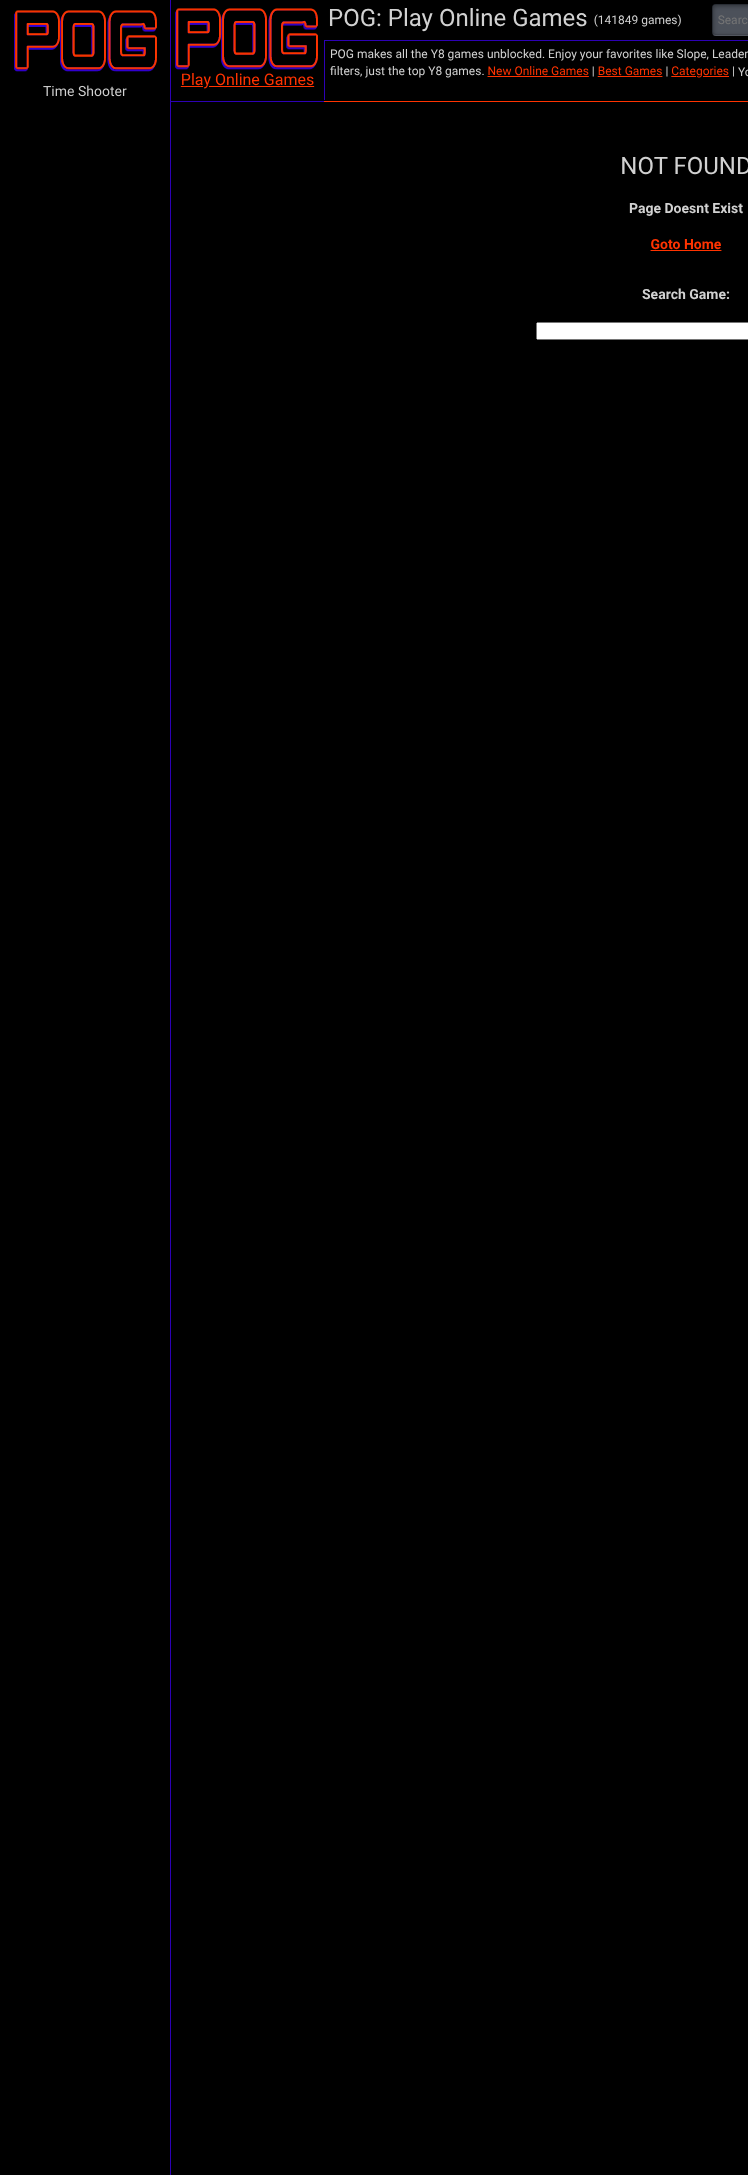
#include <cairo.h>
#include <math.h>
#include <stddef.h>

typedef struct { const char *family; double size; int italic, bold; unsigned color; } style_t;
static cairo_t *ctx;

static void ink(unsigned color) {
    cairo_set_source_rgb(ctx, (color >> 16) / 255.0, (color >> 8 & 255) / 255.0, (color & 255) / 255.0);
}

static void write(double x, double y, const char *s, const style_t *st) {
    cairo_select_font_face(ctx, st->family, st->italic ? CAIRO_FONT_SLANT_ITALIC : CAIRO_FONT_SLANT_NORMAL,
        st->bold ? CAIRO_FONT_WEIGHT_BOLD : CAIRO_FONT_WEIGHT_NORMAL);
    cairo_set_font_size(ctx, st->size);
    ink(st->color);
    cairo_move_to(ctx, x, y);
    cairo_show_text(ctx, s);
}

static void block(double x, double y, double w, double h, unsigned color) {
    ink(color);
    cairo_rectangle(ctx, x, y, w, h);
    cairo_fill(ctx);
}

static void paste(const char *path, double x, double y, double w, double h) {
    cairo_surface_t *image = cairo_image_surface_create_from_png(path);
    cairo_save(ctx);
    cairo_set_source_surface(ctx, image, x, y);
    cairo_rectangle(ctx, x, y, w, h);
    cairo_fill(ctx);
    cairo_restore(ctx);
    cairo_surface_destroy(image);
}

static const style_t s1 = {"Roboto", 14, 0, 0, 0xd1d1d1};

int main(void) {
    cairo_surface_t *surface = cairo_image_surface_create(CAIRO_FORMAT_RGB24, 748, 2175);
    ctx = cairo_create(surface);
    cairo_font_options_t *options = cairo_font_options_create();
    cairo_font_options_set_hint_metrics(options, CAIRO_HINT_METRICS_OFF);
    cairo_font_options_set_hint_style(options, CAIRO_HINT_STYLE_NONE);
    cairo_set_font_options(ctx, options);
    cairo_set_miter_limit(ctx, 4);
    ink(0x000000);
    cairo_paint(ctx);
    block(170, 0, 1, 2175, 0x2d00b5);
    paste("pic1.png", 14, 10, 143, 62);
    write(43, 96, "Time Shooter", &s1);
    paste("pic2.png", 171, 0, 577, 340);
    cairo_surface_write_to_png(surface, "screenshot.png");
    cairo_font_options_destroy(options);
    cairo_destroy(ctx);
    cairo_surface_destroy(surface);
    return 0;
}
